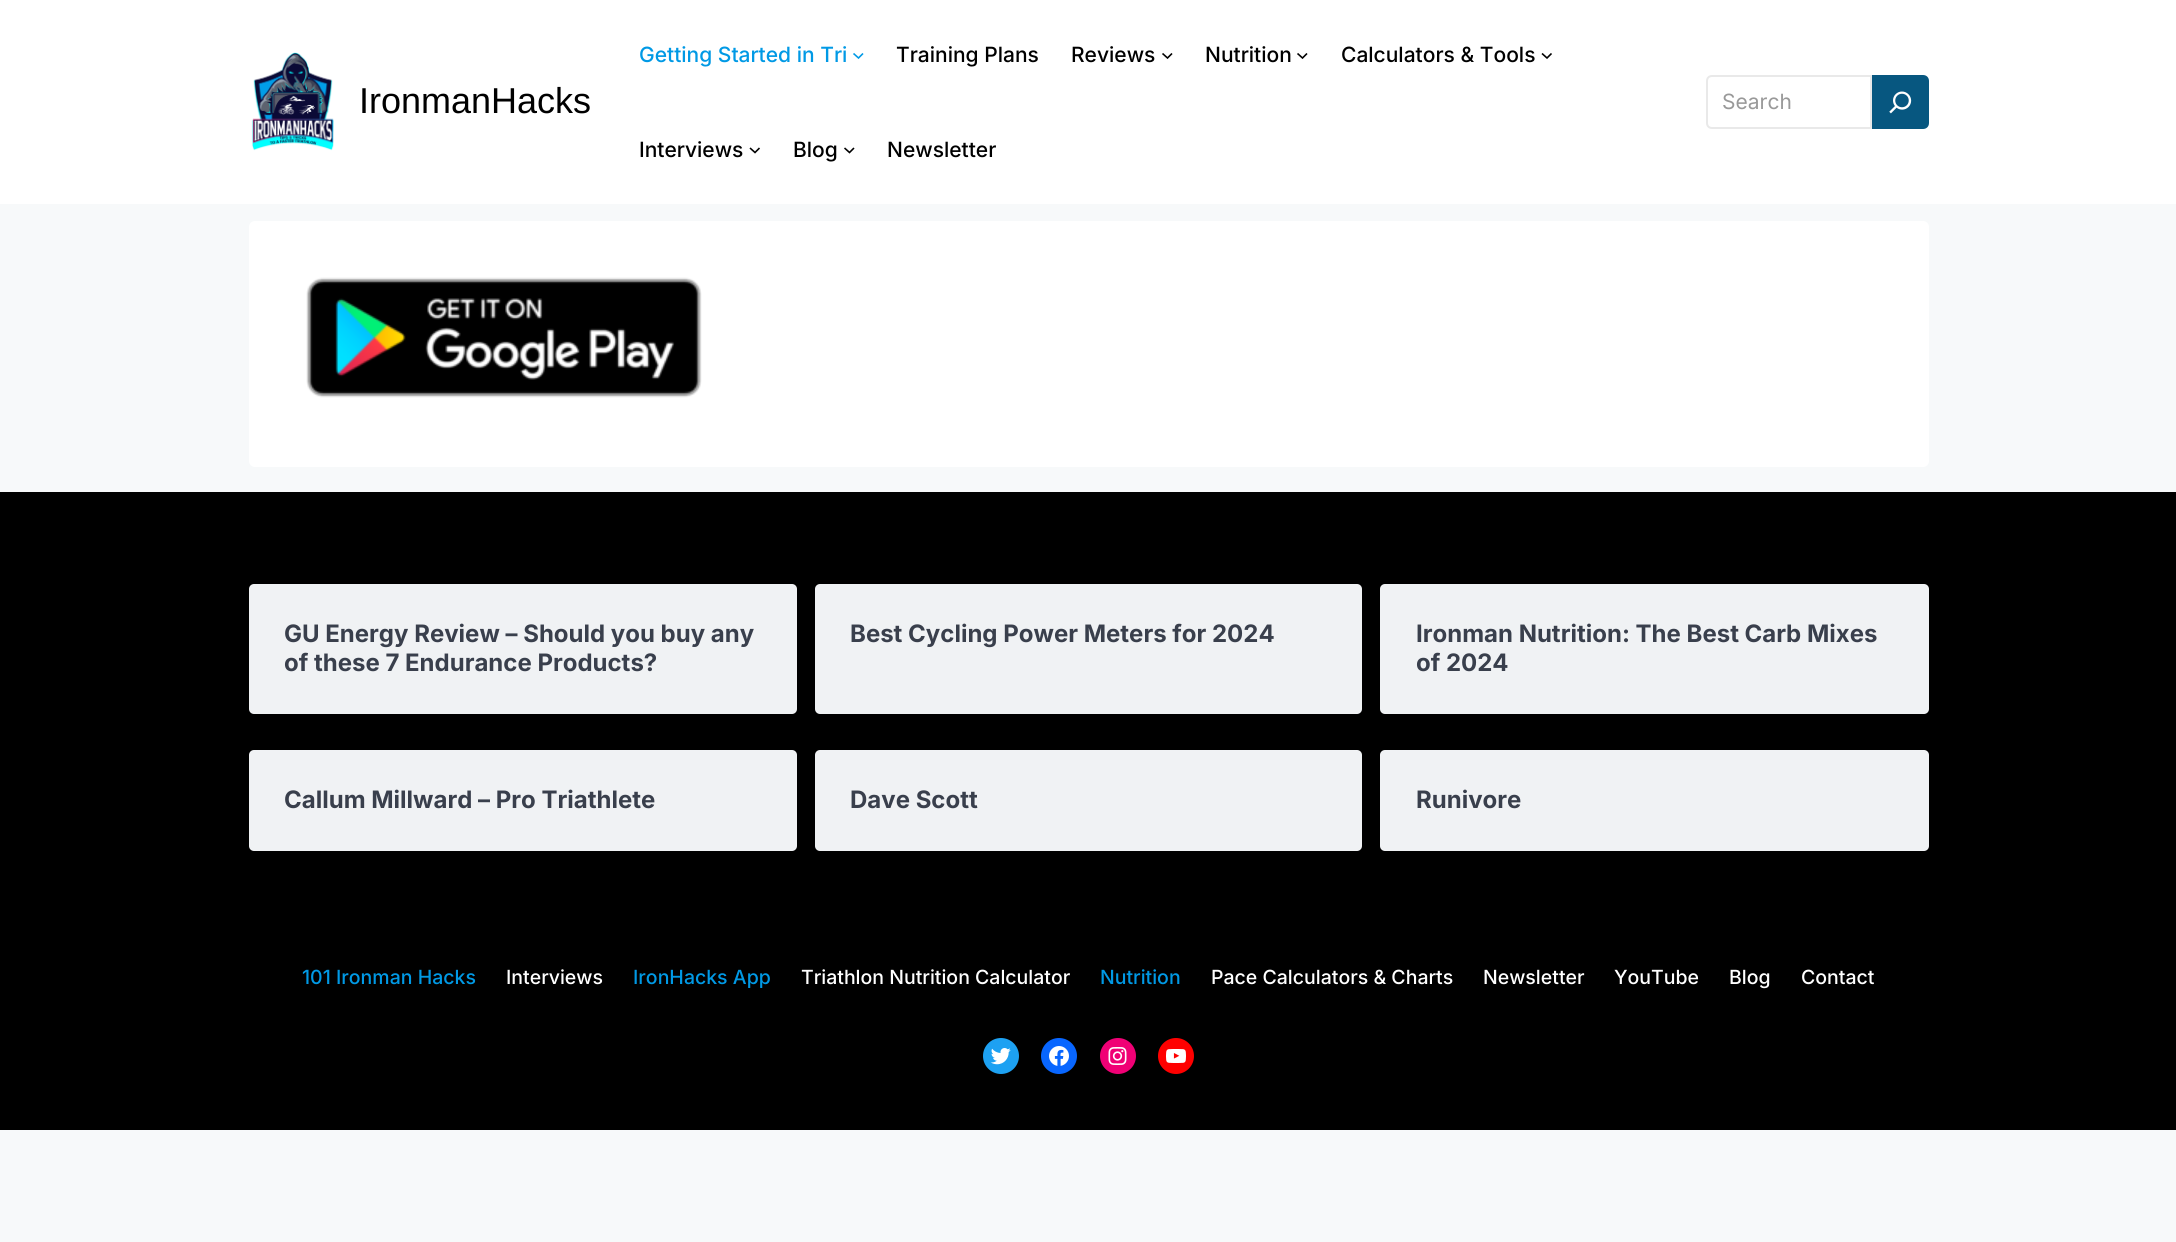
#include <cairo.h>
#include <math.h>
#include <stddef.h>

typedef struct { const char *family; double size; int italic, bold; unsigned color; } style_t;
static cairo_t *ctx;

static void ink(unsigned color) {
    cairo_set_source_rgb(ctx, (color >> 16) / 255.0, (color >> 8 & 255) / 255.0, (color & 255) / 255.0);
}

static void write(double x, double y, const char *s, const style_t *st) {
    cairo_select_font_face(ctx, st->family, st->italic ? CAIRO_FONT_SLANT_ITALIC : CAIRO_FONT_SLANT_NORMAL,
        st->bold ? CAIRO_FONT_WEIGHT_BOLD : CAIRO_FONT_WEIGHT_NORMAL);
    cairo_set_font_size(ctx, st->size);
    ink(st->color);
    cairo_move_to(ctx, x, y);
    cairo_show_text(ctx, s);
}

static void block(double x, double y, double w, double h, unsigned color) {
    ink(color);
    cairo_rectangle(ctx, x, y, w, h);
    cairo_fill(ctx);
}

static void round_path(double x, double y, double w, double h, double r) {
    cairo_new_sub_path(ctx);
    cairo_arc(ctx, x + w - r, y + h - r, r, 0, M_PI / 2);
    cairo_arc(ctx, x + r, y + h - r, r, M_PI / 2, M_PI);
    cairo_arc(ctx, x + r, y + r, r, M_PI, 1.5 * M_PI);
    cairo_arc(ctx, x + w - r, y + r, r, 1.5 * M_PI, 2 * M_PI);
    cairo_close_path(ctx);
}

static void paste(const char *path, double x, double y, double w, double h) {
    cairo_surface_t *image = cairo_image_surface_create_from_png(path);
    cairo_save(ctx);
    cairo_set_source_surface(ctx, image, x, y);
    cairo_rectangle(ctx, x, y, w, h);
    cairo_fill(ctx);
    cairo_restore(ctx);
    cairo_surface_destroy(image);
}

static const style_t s1 = {"Liberation Sans", 36, 0, 0, 0x000000};
static const style_t s2 = {"Inter Medium", 21, 0, 0, 0x0099e5};
static const style_t s3 = {"Inter Medium", 21, 0, 0, 0x000000};
static const style_t s4 = {"Inter", 21, 0, 0, 0x999999};
static const style_t s5 = {"Inter", 24, 0, 1, 0x393f4c};
static const style_t s6 = {"Inter Medium", 19.5, 0, 0, 0x0099e5};
static const style_t s7 = {"Inter Medium", 19.5, 0, 0, 0xffffff};

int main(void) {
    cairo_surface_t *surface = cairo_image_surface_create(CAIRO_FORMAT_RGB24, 2176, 1242);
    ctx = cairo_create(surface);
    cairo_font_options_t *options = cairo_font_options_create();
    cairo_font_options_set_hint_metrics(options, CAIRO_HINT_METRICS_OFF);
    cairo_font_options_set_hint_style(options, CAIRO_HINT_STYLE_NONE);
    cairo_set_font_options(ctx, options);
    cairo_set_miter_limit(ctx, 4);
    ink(0xf7f9fa);
    cairo_paint(ctx);
    block(0, 0, 2176, 204, 0xffffff);
    paste("pic1.png", 251, 52, 83, 99);
    write(359, 113, "IronmanHacks", &s1);
    write(639, 62, "Getting Started in Tri", &s2);
    cairo_new_path(ctx);
    cairo_move_to(ctx, 853.5, 53.5);
    cairo_line_to(ctx, 858.5, 58);
    cairo_line_to(ctx, 863, 53.5);
    cairo_set_line_width(ctx, 1.6);
    cairo_stroke(ctx);
    write(896, 62, "Training Plans", &s3);
    write(1071, 62, "Reviews", &s3);
    cairo_new_path(ctx);
    cairo_move_to(ctx, 1162.5, 53.5);
    cairo_line_to(ctx, 1167.5, 58);
    cairo_line_to(ctx, 1172, 53.5);
    cairo_stroke(ctx);
    write(1205, 62, "Nutrition", &s3);
    cairo_new_path(ctx);
    cairo_move_to(ctx, 1297.5, 53.5);
    cairo_line_to(ctx, 1302.5, 58);
    cairo_line_to(ctx, 1307, 53.5);
    cairo_stroke(ctx);
    write(1341, 62, "Calculators & Tools", &s3);
    cairo_new_path(ctx);
    cairo_move_to(ctx, 1542, 53.5);
    cairo_line_to(ctx, 1547, 58);
    cairo_line_to(ctx, 1551.5, 53.5);
    cairo_stroke(ctx);
    write(639, 157, "Interviews", &s3);
    cairo_new_path(ctx);
    cairo_move_to(ctx, 750, 148);
    cairo_line_to(ctx, 755, 152.5);
    cairo_line_to(ctx, 759.5, 148);
    cairo_stroke(ctx);
    write(793, 157, "Blog", &s3);
    cairo_new_path(ctx);
    cairo_move_to(ctx, 844.5, 148);
    cairo_line_to(ctx, 849.5, 152.5);
    cairo_line_to(ctx, 854, 148);
    cairo_stroke(ctx);
    write(887, 157, "Newsletter", &s3);
    cairo_new_path(ctx);
    cairo_move_to(ctx, 1712, 76);
    cairo_line_to(ctx, 1871, 76);
    cairo_line_to(ctx, 1871, 128);
    cairo_line_to(ctx, 1712, 128);
    cairo_curve_to(ctx, 1709, 128, 1707, 126, 1707, 123);
    cairo_line_to(ctx, 1707, 81);
    cairo_curve_to(ctx, 1707, 78, 1709, 76, 1712, 76);
    cairo_close_path(ctx);
    ink(0xe9e9e9);
    cairo_set_line_width(ctx, 2);
    cairo_stroke(ctx);
    write(1722, 109, "Search", &s4);
    ink(0x075780);
    cairo_new_path(ctx);
    cairo_move_to(ctx, 1872, 75);
    cairo_line_to(ctx, 1923, 75);
    cairo_curve_to(ctx, 1926.5, 75, 1929, 77.5, 1929, 81);
    cairo_line_to(ctx, 1929, 123);
    cairo_curve_to(ctx, 1929, 126.5, 1926.5, 129, 1923, 129);
    cairo_line_to(ctx, 1872, 129);
    cairo_close_path(ctx);
    cairo_fill(ctx);
    paste("pic2.png", 1889, 91, 23, 23);
    ink(0xffffff);
    round_path(249, 221, 1680, 246, 6);
    cairo_fill(ctx);
    paste("pic3.png", 306, 277, 396, 121);
    block(0, 492, 2176, 638, 0x000000);
    ink(0xf0f2f4);
    round_path(249, 584, 548, 130, 5);
    cairo_fill(ctx);
    write(284, 642, "GU Energy Review – Should you buy any", &s5);
    write(284, 671, "of these 7 Endurance Products?", &s5);
    ink(0xf0f2f4);
    round_path(815, 584, 547, 130, 5);
    cairo_fill(ctx);
    write(850, 642, "Best Cycling Power Meters for 2024", &s5);
    ink(0xf0f2f4);
    round_path(1380, 584, 549, 130, 5);
    cairo_fill(ctx);
    write(1416, 642, "Ironman Nutrition: The Best Carb Mixes", &s5);
    write(1416, 671, "of 2024", &s5);
    ink(0xf0f2f4);
    round_path(249, 750, 548, 101, 5);
    cairo_fill(ctx);
    write(284, 808, "Callum Millward – Pro Triathlete", &s5);
    ink(0xf0f2f4);
    round_path(815, 750, 547, 101, 5);
    cairo_fill(ctx);
    write(850, 808, "Dave Scott", &s5);
    ink(0xf0f2f4);
    round_path(1380, 750, 549, 101, 5);
    cairo_fill(ctx);
    write(1416, 808, "Runivore", &s5);
    write(302, 984, "101 Ironman Hacks", &s6);
    write(506, 984, "Interviews", &s7);
    write(633, 984, "IronHacks App", &s6);
    write(801, 984, "Triathlon Nutrition Calculator", &s7);
    write(1100, 984, "Nutrition", &s6);
    write(1211, 984, "Pace Calculators & Charts", &s7);
    write(1483, 984, "Newsletter", &s7);
    write(1614, 984, "YouTube", &s7);
    write(1729, 984, "Blog", &s7);
    write(1801, 984, "Contact", &s7);
    ink(0x1da1f2);
    cairo_new_path(ctx);
    cairo_arc(ctx, 1001, 1056, 18, 0, 2 * M_PI);
    cairo_fill(ctx);
    paste("pic4.png", 990, 1048, 21, 17);
    ink(0x0866ff);
    cairo_arc(ctx, 1059, 1056, 18, 0, 2 * M_PI);
    cairo_fill(ctx);
    paste("pic5.png", 1049, 1046, 20, 20);
    ink(0xf00075);
    cairo_arc(ctx, 1118, 1056, 18, 0, 2 * M_PI);
    cairo_fill(ctx);
    paste("pic6.png", 1108, 1047, 19, 18);
    ink(0xff0000);
    cairo_arc(ctx, 1176, 1056, 18, 0, 2 * M_PI);
    cairo_fill(ctx);
    paste("pic7.png", 1166, 1049, 20, 14);
    cairo_surface_write_to_png(surface, "screenshot.png");
    cairo_font_options_destroy(options);
    cairo_destroy(ctx);
    cairo_surface_destroy(surface);
    return 0;
}
